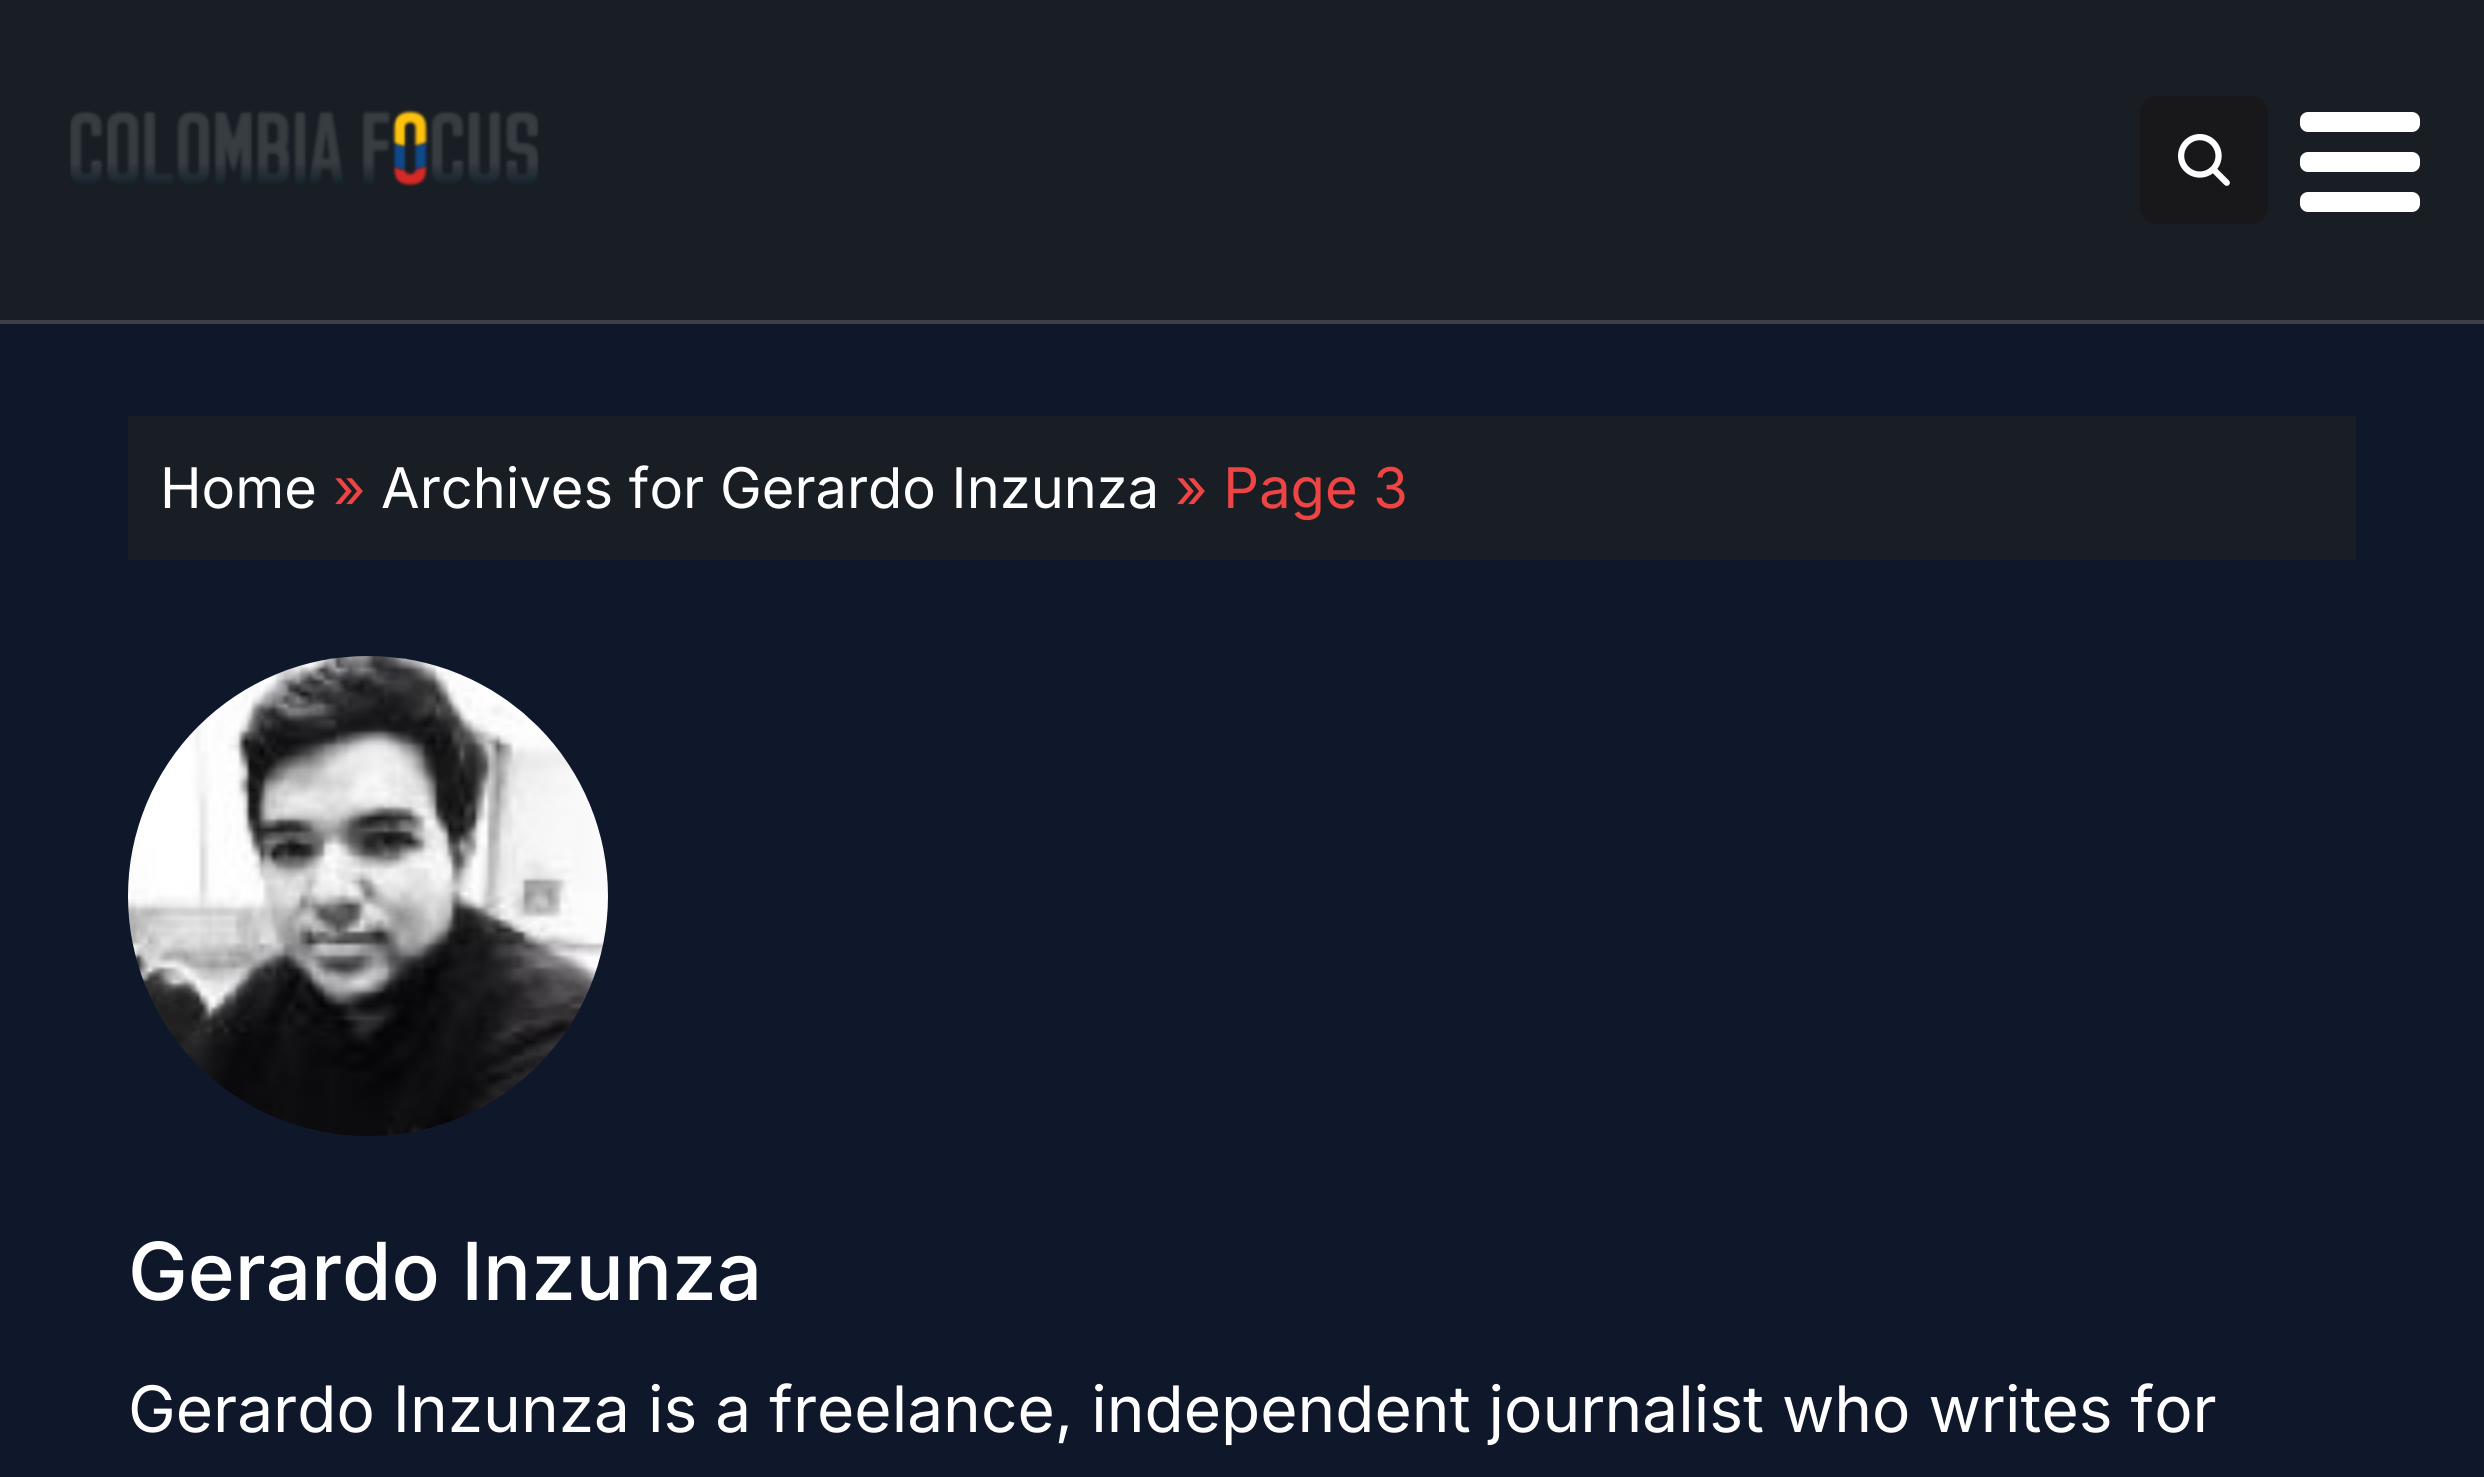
#include <cairo.h>
#include <math.h>
#include <stddef.h>

typedef struct { const char *family; double size; int italic, bold; unsigned color; } style_t;
static cairo_t *ctx;

static void ink(unsigned color) {
    cairo_set_source_rgb(ctx, (color >> 16) / 255.0, (color >> 8 & 255) / 255.0, (color & 255) / 255.0);
}

static void write(double x, double y, const char *s, const style_t *st) {
    cairo_select_font_face(ctx, st->family, st->italic ? CAIRO_FONT_SLANT_ITALIC : CAIRO_FONT_SLANT_NORMAL,
        st->bold ? CAIRO_FONT_WEIGHT_BOLD : CAIRO_FONT_WEIGHT_NORMAL);
    cairo_set_font_size(ctx, st->size);
    ink(st->color);
    cairo_move_to(ctx, x, y);
    cairo_show_text(ctx, s);
}

static void block(double x, double y, double w, double h, unsigned color) {
    ink(color);
    cairo_rectangle(ctx, x, y, w, h);
    cairo_fill(ctx);
}

static void round_path(double x, double y, double w, double h, double r) {
    cairo_new_sub_path(ctx);
    cairo_arc(ctx, x + w - r, y + h - r, r, 0, M_PI / 2);
    cairo_arc(ctx, x + r, y + h - r, r, M_PI / 2, M_PI);
    cairo_arc(ctx, x + r, y + r, r, M_PI, 1.5 * M_PI);
    cairo_arc(ctx, x + w - r, y + r, r, 1.5 * M_PI, 2 * M_PI);
    cairo_close_path(ctx);
}

static void paste(const char *path, double x, double y, double w, double h) {
    cairo_surface_t *image = cairo_image_surface_create_from_png(path);
    cairo_save(ctx);
    cairo_set_source_surface(ctx, image, x, y);
    cairo_rectangle(ctx, x, y, w, h);
    cairo_fill(ctx);
    cairo_restore(ctx);
    cairo_surface_destroy(image);
}

static const style_t s1 = {"Inter", 56, 0, 0, 0xffffff};
static const style_t s2 = {"Inter", 56, 0, 0, 0xef4444};
static const style_t s3 = {"Inter Medium", 80, 0, 0, 0xffffff};
static const style_t s4 = {"Inter", 64, 0, 0, 0xffffff};

int main(void) {
    cairo_surface_t *surface = cairo_image_surface_create(CAIRO_FORMAT_RGB24, 2484, 1477);
    ctx = cairo_create(surface);
    cairo_font_options_t *options = cairo_font_options_create();
    cairo_font_options_set_hint_metrics(options, CAIRO_HINT_METRICS_OFF);
    cairo_font_options_set_hint_style(options, CAIRO_HINT_STYLE_NONE);
    cairo_set_font_options(ctx, options);
    cairo_set_miter_limit(ctx, 4);
    ink(0x0f172a);
    cairo_paint(ctx);
    block(0, 0, 2484, 320, 0x191e25);
    block(0, 320, 2484, 4, 0x3f3f46);
    paste("pic1.png", 70, 109, 469, 78);
    ink(0x18181b);
    round_path(2140, 96, 128, 128, 16);
    cairo_fill(ctx);
    paste("pic2.png", 2178, 134, 52, 52);
    ink(0xffffff);
    round_path(2300, 112, 120, 20, 8);
    cairo_fill(ctx);
    round_path(2300, 152, 120, 20, 8);
    cairo_fill(ctx);
    round_path(2300, 192, 120, 20, 8);
    cairo_fill(ctx);
    block(128, 416, 2228, 144, 0x191e25);
    write(160, 508, "Home", &s1);
    write(333, 508, "»", &s2);
    write(381, 508, "Archives for Gerardo Inzunza", &s1);
    write(1175, 508, "» Page 3", &s2);
    paste("pic3.png", 128, 656, 480, 480);
    write(128, 1300, "Gerardo Inzunza", &s3);
    write(128, 1432, "Gerardo Inzunza is a freelance, independent journalist who writes for", &s4);
    cairo_surface_write_to_png(surface, "screenshot.png");
    cairo_font_options_destroy(options);
    cairo_destroy(ctx);
    cairo_surface_destroy(surface);
    return 0;
}
